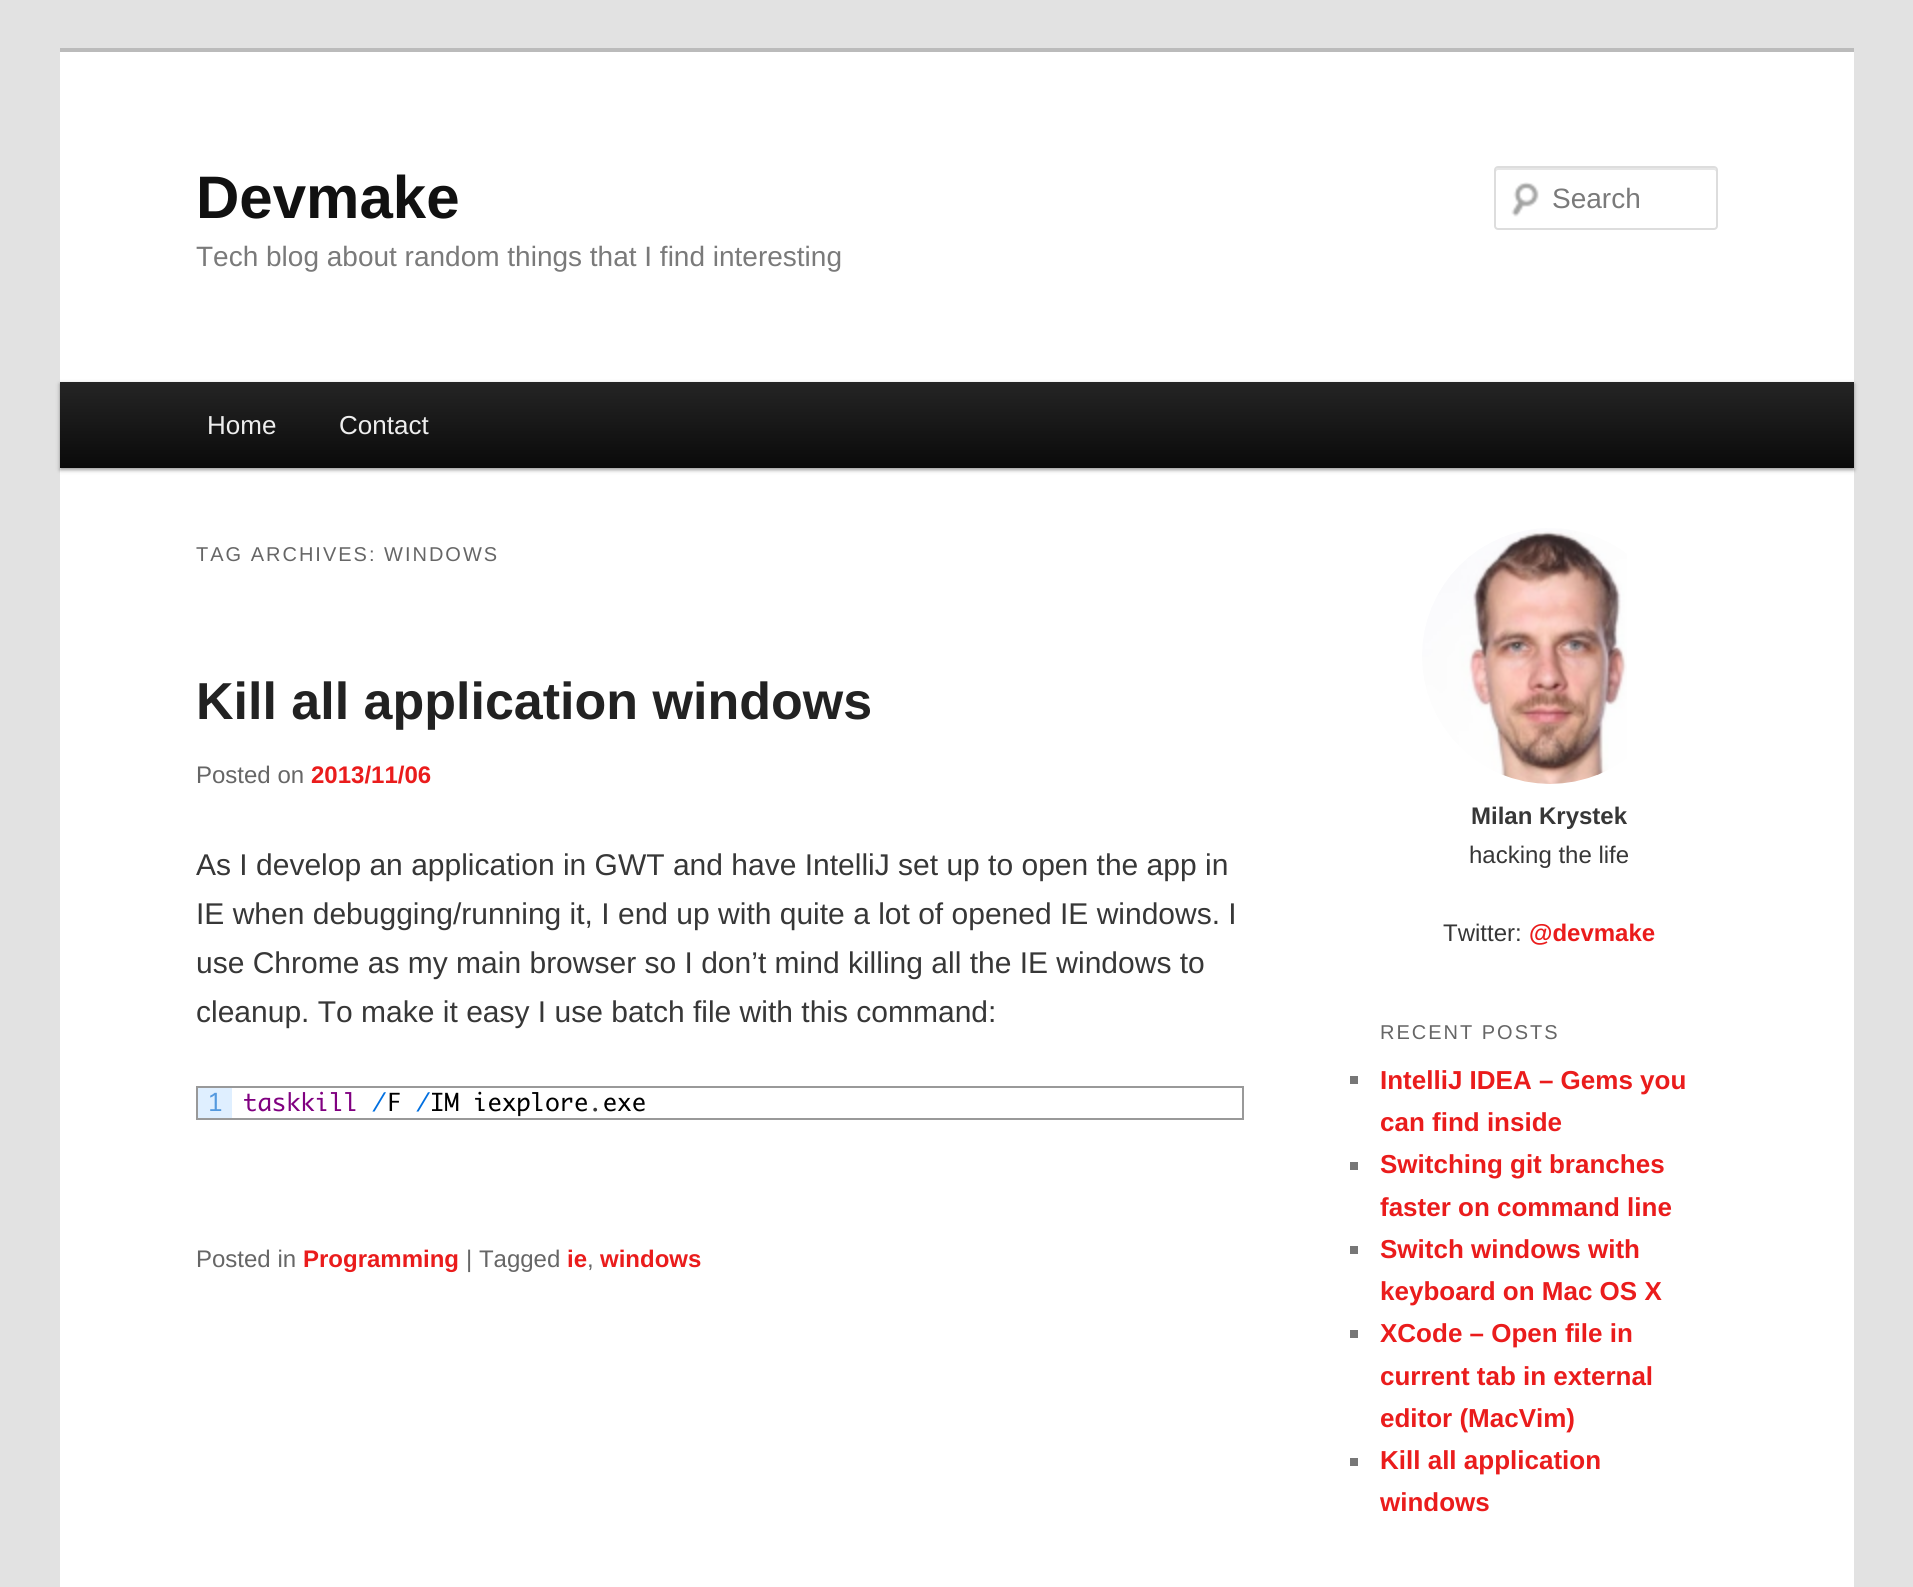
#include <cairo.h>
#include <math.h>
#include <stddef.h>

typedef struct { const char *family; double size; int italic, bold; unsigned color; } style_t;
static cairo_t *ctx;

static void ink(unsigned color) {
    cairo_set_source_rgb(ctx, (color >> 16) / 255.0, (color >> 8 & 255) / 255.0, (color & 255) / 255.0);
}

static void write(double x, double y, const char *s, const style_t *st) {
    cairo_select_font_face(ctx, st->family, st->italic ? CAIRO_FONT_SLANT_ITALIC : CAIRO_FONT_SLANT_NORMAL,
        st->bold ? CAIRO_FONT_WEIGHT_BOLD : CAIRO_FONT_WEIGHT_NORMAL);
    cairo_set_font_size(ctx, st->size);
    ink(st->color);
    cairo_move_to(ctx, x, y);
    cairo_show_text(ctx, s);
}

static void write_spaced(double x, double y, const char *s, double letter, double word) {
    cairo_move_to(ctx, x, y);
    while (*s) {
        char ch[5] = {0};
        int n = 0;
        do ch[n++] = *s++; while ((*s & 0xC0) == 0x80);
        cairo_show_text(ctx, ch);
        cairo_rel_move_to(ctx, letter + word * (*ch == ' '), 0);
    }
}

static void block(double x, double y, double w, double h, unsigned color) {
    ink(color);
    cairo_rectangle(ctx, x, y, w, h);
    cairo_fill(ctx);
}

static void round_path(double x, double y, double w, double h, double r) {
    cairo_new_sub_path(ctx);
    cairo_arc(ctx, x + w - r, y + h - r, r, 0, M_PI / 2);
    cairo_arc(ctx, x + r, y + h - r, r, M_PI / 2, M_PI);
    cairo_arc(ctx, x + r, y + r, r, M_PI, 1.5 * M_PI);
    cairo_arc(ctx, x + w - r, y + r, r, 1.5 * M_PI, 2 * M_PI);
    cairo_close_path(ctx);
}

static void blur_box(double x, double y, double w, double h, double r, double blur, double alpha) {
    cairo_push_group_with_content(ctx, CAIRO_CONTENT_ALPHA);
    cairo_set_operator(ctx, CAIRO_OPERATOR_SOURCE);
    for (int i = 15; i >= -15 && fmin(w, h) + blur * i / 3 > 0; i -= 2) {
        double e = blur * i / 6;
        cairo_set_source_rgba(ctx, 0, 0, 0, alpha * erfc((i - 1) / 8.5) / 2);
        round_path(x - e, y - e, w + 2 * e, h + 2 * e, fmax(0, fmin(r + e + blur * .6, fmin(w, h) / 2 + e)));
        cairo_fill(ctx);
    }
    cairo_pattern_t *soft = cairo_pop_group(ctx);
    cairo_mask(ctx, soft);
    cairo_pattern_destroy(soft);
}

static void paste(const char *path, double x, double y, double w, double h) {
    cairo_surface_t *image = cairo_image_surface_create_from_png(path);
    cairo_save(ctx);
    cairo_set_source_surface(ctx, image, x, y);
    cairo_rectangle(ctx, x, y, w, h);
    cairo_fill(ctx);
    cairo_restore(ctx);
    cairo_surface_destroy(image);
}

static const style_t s1 = {"Liberation Sans", 60, 0, 1, 0x111111};
static const style_t s2 = {"Liberation Sans", 28, 0, 0, 0x7a7a7a};
static const style_t s3 = {"Liberation Sans", 26, 0, 0, 0xeeeeee};
static const style_t s4 = {"Liberation Sans", 52, 0, 1, 0x222222};
static const style_t s5 = {"Liberation Sans", 24, 0, 0, 0x666666};
static const style_t s6 = {"Liberation Sans", 24, 0, 1, 0xea1c1c};
static const style_t s7 = {"Liberation Sans", 30, 0, 0, 0x373737};
static const style_t s8 = {"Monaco", 24, 0, 0, 0x5499de};
static const style_t s9 = {"Monaco", 24, 0, 0, 0x800080};
static const style_t s10 = {"Monaco", 24, 0, 0, 0x006fe0};
static const style_t s11 = {"Monaco", 24, 0, 0, 0x000000};
static const style_t s12 = {"Monaco", 24, 0, 0, 0x373737};
static const style_t s13 = {"Liberation Sans", 24, 0, 1, 0x373737};
static const style_t s14 = {"Liberation Sans", 24, 0, 0, 0x373737};
static const style_t s15 = {"Liberation Sans", 26, 0, 1, 0xea1c1c};

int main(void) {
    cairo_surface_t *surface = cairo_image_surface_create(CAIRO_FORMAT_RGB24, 1913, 1587);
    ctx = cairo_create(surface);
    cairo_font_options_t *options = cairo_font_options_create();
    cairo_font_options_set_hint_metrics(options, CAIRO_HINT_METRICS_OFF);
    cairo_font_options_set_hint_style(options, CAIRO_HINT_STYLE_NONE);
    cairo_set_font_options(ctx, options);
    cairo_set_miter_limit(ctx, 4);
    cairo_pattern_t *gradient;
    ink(0xe2e2e2);
    cairo_paint(ctx);
    block(60, 52, 1794, 1535, 0xffffff);
    block(60, 48, 1794, 4, 0xbbbbbb);
    write(196, 218, "Devmake", &s1);
    write(196, 266, "Tech blog about random things that I find interesting", &s2);
    paste("pic1.png", 1511, 182, 28, 35);
    ink(0xe6e6e6);
    cairo_new_path(ctx);
    cairo_move_to(ctx, 1498, 170);
    cairo_line_to(ctx, 1714, 170);
    cairo_curve_to(ctx, 1715, 170, 1716, 171, 1716, 172);
    cairo_line_to(ctx, 1716, 170);
    cairo_curve_to(ctx, 1716, 169, 1715, 168, 1714, 168);
    cairo_line_to(ctx, 1498, 168);
    cairo_curve_to(ctx, 1497, 168, 1496, 169, 1496, 170);
    cairo_line_to(ctx, 1496, 172);
    cairo_curve_to(ctx, 1496, 171, 1497, 170, 1498, 170);
    cairo_close_path(ctx);
    cairo_fill(ctx);
    round_path(1495, 167, 222, 62, 3);
    ink(0xdddddd);
    cairo_stroke(ctx);
    write(1552, 208, "Search", &s2);
    ink(0x000000);
    blur_box(60, 384, 1794, 86, 0, 2, 0.4);
    gradient = cairo_pattern_create_linear(957, 382, 957, 468);
    cairo_pattern_add_color_stop_rgba(gradient, 0, 0.145, 0.145, 0.145, 1);
    cairo_pattern_add_color_stop_rgba(gradient, 1, 0.039, 0.039, 0.039, 1);
    cairo_set_source(ctx, gradient);
    cairo_pattern_destroy(gradient);
    cairo_rectangle(ctx, 60, 382, 1794, 86);
    cairo_fill(ctx);
    write(207, 434, "Home", &s3);
    write(339, 434, "Contact", &s3);
    cairo_set_font_size(ctx, 20);
    ink(0x666666);
    write_spaced(196, 561, "TAG ARCHIVES: WINDOWS", 2, 0);
    write(196, 719, "Kill all application windows", &s4);
    write(196, 783, "Posted on", &s5);
    write(311, 783, "2013/11/06", &s6);
    write(196, 875, "As I develop an application in GWT and have IntelliJ set up to open the app in", &s7);
    write(196, 924, "IE when debugging/running it, I end up with quite a lot of opened IE windows. I", &s7);
    write(196, 973, "use Chrome as my main browser so I don’t mind killing all the IE windows to", &s7);
    write(196, 1022, "cleanup. To make it easy I use batch file with this command:", &s7);
    cairo_rectangle(ctx, 197, 1087, 1046, 32);
    ink(0x999999);
    cairo_stroke(ctx);
    block(198, 1088, 34, 30, 0xdfefff);
    write(208, 1111, "1", &s8);
    write(243, 1111, "taskkill", &s9);
    write(372, 1111, "/", &s10);
    write(387, 1111, "F", &s11);
    write(416, 1111, "/", &s10);
    write(430, 1111, "IM iexplore exe", &s11);
    write(588, 1111, ".", &s12);
    write(196, 1267, "Posted in", &s5);
    write(303, 1267, "Programming", &s6);
    write(466, 1267, "| Tagged", &s5);
    write(567, 1267, "ie", &s6);
    write(587, 1267, ",", &s5);
    write(600, 1267, "windows", &s6);
    paste("pic2.png", 1422, 528, 205, 256);
    write(1471, 824, "Milan Krystek", &s13);
    write(1469, 863, "hacking the life", &s14);
    write(1443, 941, "Twitter:", &s14);
    write(1529, 941, "@devmake", &s6);
    cairo_select_font_face(ctx, "Liberation Sans", CAIRO_FONT_SLANT_NORMAL, CAIRO_FONT_WEIGHT_NORMAL);
    cairo_set_font_size(ctx, 20);
    ink(0x666666);
    write_spaced(1380, 1039, "RECENT POSTS", 2, 0);
    block(1350, 1076, 8, 8, 0x777777);
    write(1380, 1089, "IntelliJ IDEA – Gems you", &s15);
    write(1380, 1131, "can find inside", &s15);
    block(1350, 1162, 8, 8, 0x777777);
    write(1380, 1173, "Switching git branches", &s15);
    write(1380, 1216, "faster on command line", &s15);
    block(1350, 1246, 8, 8, 0x777777);
    write(1380, 1258, "Switch windows with", &s15);
    write(1380, 1300, "keyboard on Mac OS X", &s15);
    block(1350, 1330, 8, 8, 0x777777);
    write(1380, 1342, "XCode – Open file in", &s15);
    write(1380, 1385, "current tab in external", &s15);
    write(1380, 1427, "editor (MacVim)", &s15);
    block(1350, 1458, 8, 8, 0x777777);
    write(1380, 1469, "Kill all application", &s15);
    write(1380, 1511, "windows", &s15);
    cairo_surface_write_to_png(surface, "screenshot.png");
    cairo_font_options_destroy(options);
    cairo_destroy(ctx);
    cairo_surface_destroy(surface);
    return 0;
}
